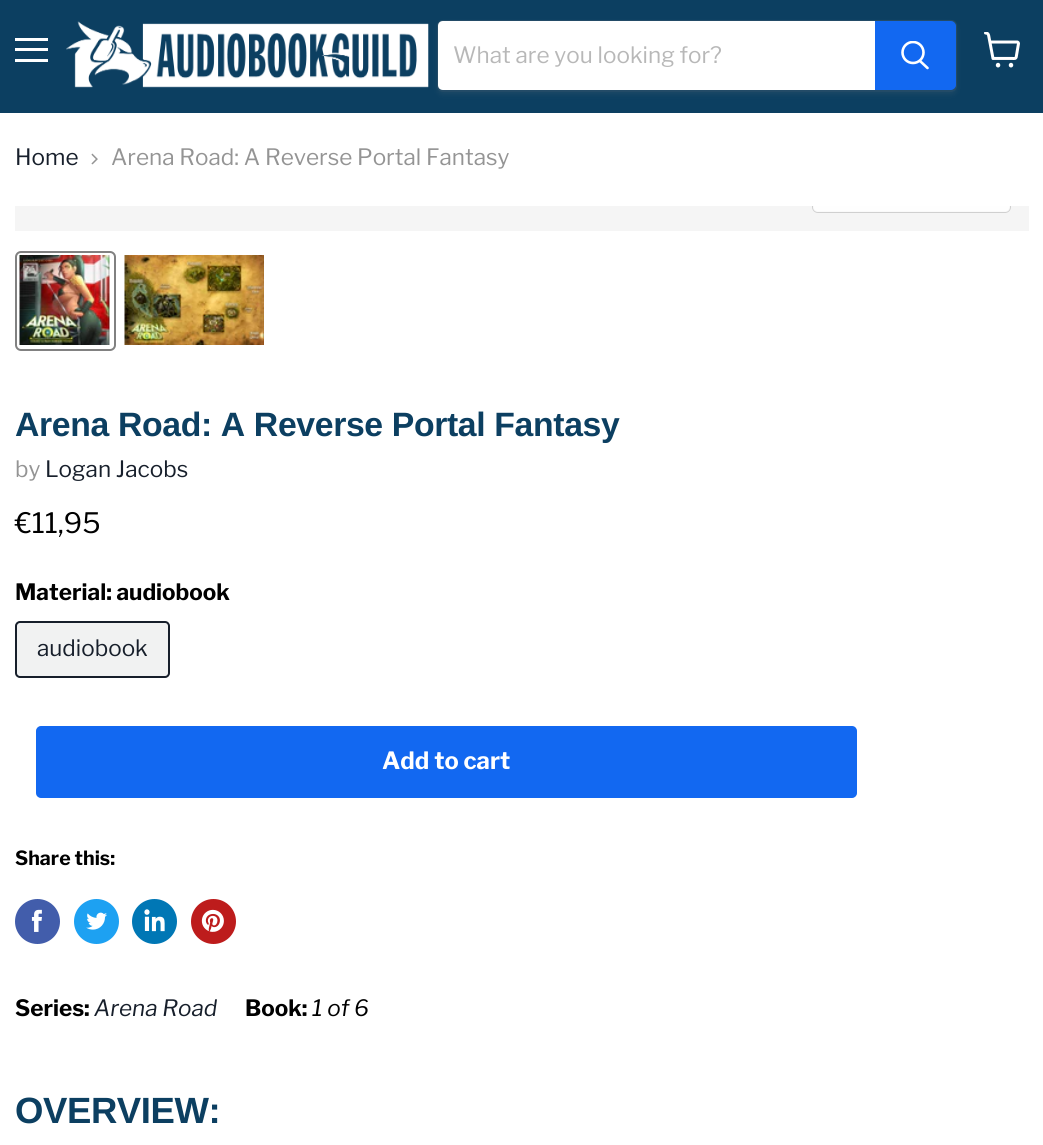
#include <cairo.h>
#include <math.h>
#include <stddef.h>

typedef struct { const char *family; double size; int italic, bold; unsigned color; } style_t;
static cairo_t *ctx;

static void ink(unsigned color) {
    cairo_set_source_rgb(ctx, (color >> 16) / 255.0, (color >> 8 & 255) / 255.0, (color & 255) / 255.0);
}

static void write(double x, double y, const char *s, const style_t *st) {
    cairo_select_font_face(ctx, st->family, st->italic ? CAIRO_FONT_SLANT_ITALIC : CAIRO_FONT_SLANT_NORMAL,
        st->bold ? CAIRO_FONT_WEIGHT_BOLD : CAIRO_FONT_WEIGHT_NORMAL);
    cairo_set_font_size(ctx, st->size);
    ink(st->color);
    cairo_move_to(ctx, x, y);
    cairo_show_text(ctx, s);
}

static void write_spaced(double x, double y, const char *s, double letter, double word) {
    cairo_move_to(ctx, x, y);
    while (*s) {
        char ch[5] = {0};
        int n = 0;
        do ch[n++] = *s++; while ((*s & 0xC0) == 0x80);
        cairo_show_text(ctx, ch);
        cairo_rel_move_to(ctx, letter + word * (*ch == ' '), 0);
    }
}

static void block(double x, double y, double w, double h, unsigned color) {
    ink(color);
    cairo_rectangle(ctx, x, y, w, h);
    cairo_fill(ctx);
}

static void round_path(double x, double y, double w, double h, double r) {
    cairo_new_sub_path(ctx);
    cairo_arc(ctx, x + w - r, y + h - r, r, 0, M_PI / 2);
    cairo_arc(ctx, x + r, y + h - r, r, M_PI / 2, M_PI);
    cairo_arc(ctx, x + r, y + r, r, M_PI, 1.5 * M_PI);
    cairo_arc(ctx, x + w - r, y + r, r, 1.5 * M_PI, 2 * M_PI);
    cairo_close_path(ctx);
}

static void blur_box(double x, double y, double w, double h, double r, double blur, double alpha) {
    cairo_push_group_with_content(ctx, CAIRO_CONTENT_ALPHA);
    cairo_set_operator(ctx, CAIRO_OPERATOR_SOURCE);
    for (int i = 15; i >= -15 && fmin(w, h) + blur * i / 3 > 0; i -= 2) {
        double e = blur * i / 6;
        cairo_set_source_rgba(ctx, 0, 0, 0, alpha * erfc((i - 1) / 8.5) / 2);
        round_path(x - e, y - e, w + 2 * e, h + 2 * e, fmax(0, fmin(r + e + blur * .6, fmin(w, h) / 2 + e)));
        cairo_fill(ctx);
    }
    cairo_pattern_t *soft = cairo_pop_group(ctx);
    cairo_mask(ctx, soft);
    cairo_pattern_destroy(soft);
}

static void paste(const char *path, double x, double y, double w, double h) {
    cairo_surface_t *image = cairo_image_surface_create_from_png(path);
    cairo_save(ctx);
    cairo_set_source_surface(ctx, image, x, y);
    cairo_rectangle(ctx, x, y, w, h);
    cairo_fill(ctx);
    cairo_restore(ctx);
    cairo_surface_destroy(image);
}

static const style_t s1 = {"Libre Franklin", 22.5, 0, 0, 0xb8b8b8};
static const style_t s2 = {"Libre Franklin", 22.5, 0, 0, 0x171f2b};
static const style_t s3 = {"Libre Franklin", 22.5, 0, 0, 0x949494};
static const style_t s4 = {"Libre Franklin", 28, 0, 0, 0x000000};
static const style_t s5 = {"Libre Franklin", 22.5, 0, 1, 0x000000};
static const style_t s6 = {"Libre Franklin", 23.75, 0, 1, 0xffffff};
static const style_t s7 = {"Libre Franklin", 19.5, 0, 1, 0x000000};
static const style_t s8 = {"Libre Franklin", 22.5, 1, 0, 0x171f2b};
static const style_t s9 = {"Libre Franklin", 22.5, 1, 0, 0x000000};

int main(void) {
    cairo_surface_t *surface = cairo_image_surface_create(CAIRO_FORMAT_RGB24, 1043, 1145);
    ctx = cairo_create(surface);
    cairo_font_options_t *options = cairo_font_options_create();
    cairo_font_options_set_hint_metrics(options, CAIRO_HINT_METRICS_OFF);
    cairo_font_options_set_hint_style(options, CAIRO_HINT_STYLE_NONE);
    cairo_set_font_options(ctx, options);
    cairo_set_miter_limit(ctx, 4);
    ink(0xffffff);
    cairo_paint(ctx);
    block(0, 0, 1043, 113, 0x0c3f61);
    block(15, 38, 33, 3, 0xffffff);
    block(15, 48, 33, 3, 0xffffff);
    block(15, 59, 33, 3, 0xffffff);
    paste("pic1.png", 66, 21, 363, 67);
    cairo_save(ctx);
    cairo_set_fill_rule(ctx, CAIRO_FILL_RULE_EVEN_ODD);
    cairo_new_path(ctx);
    cairo_move_to(ctx, 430, 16);
    cairo_line_to(ctx, 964, 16);
    cairo_line_to(ctx, 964, 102);
    cairo_line_to(ctx, 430, 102);
    cairo_close_path(ctx);
    cairo_move_to(ctx, 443, 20);
    cairo_line_to(ctx, 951, 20);
    cairo_curve_to(ctx, 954.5, 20, 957, 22.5, 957, 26);
    cairo_line_to(ctx, 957, 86);
    cairo_curve_to(ctx, 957, 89.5, 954.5, 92, 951, 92);
    cairo_line_to(ctx, 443, 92);
    cairo_curve_to(ctx, 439.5, 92, 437, 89.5, 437, 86);
    cairo_line_to(ctx, 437, 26);
    cairo_curve_to(ctx, 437, 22.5, 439.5, 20, 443, 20);
    cairo_close_path(ctx);
    cairo_clip(ctx);
    ink(0x808080);
    blur_box(437, 23, 520, 72, 6, 2, 0.11);
    cairo_restore(ctx);
    round_path(438, 21, 518, 70, 5);
    cairo_set_source_rgba(ctx, 0.502, 0.502, 0.502, 0.2);
    cairo_stroke(ctx);
    ink(0xffffff);
    cairo_new_path(ctx);
    cairo_move_to(ctx, 443, 21);
    cairo_line_to(ctx, 875, 21);
    cairo_line_to(ctx, 875, 90);
    cairo_line_to(ctx, 443, 90);
    cairo_curve_to(ctx, 440, 90, 438, 88, 438, 85);
    cairo_line_to(ctx, 438, 26);
    cairo_curve_to(ctx, 438, 23, 440, 21, 443, 21);
    cairo_close_path(ctx);
    cairo_fill(ctx);
    write(453, 63, "What are you looking for?", &s1);
    ink(0x1268f1);
    cairo_new_path(ctx);
    cairo_move_to(ctx, 876, 22);
    cairo_line_to(ctx, 951, 22);
    cairo_curve_to(ctx, 953, 22, 955, 24, 955, 26);
    cairo_line_to(ctx, 955, 85);
    cairo_curve_to(ctx, 955, 87, 953, 89, 951, 89);
    cairo_line_to(ctx, 876, 89);
    cairo_close_path(ctx);
    cairo_fill_preserve(ctx);
    cairo_stroke(ctx);
    cairo_new_path(ctx);
    cairo_move_to(ctx, 927.5, 68);
    cairo_line_to(ctx, 920, 61);
    ink(0xffffff);
    cairo_set_line_width(ctx, 2.6);
    cairo_set_line_cap(ctx, CAIRO_LINE_CAP_ROUND);
    cairo_stroke(ctx);
    cairo_save(ctx);
    cairo_rectangle(ctx, 900, 41, 30, 31);
    cairo_clip(ctx);
    cairo_arc(ctx, 913, 52.5, 10.5, 0, 2 * M_PI);
    cairo_set_line_cap(ctx, CAIRO_LINE_CAP_BUTT);
    cairo_stroke(ctx);
    cairo_restore(ctx);
    paste("pic2.png", 984, 32, 36, 36);
    write(15, 165, "Home", &s2);
    paste("pic3.png", 91, 153, 7, 12);
    write(111, 165, "Arena Road: A Reverse Portal Fantasy", &s3);
    block(15, 206, 1014, 25, 0xf5f5f5);
    cairo_save(ctx);
    cairo_rectangle(ctx, 15, 206, 1014, 25);
    cairo_clip(ctx);
    round_path(813, 171, 197, 41, 5);
    ink(0xd0d0d0);
    cairo_set_line_width(ctx, 2);
    cairo_set_line_cap(ctx, CAIRO_LINE_CAP_BUTT);
    cairo_stroke(ctx);
    cairo_restore(ctx);
    cairo_set_source_rgba(ctx, 1, 1, 1, 0.9);
    cairo_new_path(ctx);
    cairo_move_to(ctx, 813, 206);
    cairo_line_to(ctx, 1010, 206);
    cairo_line_to(ctx, 1010, 207);
    cairo_curve_to(ctx, 1010, 210, 1008, 212, 1005, 212);
    cairo_line_to(ctx, 818, 212);
    cairo_curve_to(ctx, 815, 212, 813, 210, 813, 207);
    cairo_close_path(ctx);
    cairo_fill(ctx);
    round_path(16, 252, 99, 98, 5);
    ink(0x818181);
    cairo_set_line_width(ctx, 2);
    cairo_set_line_cap(ctx, CAIRO_LINE_CAP_BUTT);
    cairo_stroke(ctx);
    paste("pic4.png", 19, 255, 91, 90);
    paste("pic5.png", 124, 255, 140, 90);
    cairo_select_font_face(ctx, "Arimo", CAIRO_FONT_SLANT_NORMAL, CAIRO_FONT_WEIGHT_BOLD);
    cairo_set_font_size(ctx, 33.75);
    ink(0x0c3f61);
    write_spaced(15, 436, "Arena Road: A Reverse Portal Fantasy", -0.35, 0);
    write(15, 477, "by", &s3);
    write(45, 477, "Logan Jacobs", &s2);
    write(15, 533, "€11,95", &s4);
    write(15, 600, "Material: audiobook", &s5);
    ink(0xf1f2f2);
    round_path(16, 622, 153, 55, 4);
    cairo_fill_preserve(ctx);
    ink(0x171f2b);
    cairo_stroke(ctx);
    write(37, 656, "audiobook", &s2);
    ink(0x1268f1);
    round_path(37, 727, 819, 70, 4);
    cairo_fill_preserve(ctx);
    cairo_stroke(ctx);
    write(382, 769, "Add to cart", &s6);
    write(15, 865, "Share this:", &s7);
    ink(0x425dab);
    cairo_new_path(ctx);
    cairo_arc(ctx, 37.5, 921.5, 22.5, 0, 2 * M_PI);
    cairo_fill(ctx);
    paste("pic6.png", 31, 909, 11, 23);
    ink(0x1da1f2);
    cairo_arc(ctx, 96.5, 921.5, 22.5, 0, 2 * M_PI);
    cairo_fill(ctx);
    paste("pic7.png", 86, 912, 21, 18);
    ink(0x0077b5);
    cairo_arc(ctx, 154.5, 921.5, 22.5, 0, 2 * M_PI);
    cairo_fill(ctx);
    paste("pic8.png", 144, 909, 21, 23);
    ink(0xbd1c1c);
    cairo_arc(ctx, 213.5, 921.5, 22.5, 0, 2 * M_PI);
    cairo_fill(ctx);
    paste("pic9.png", 201, 909, 23, 23);
    write(15, 1016, "Series:", &s5);
    write(94, 1016, "Arena Road", &s8);
    write(245, 1016, "Book:", &s5);
    write(312, 1016, "1 of 6", &s9);
    cairo_select_font_face(ctx, "Arimo", CAIRO_FONT_SLANT_NORMAL, CAIRO_FONT_WEIGHT_BOLD);
    cairo_set_font_size(ctx, 36.5);
    ink(0x0c3f61);
    write_spaced(15, 1123, "OVERVIEW:", -0.4, 0);
    cairo_surface_write_to_png(surface, "screenshot.png");
    cairo_font_options_destroy(options);
    cairo_destroy(ctx);
    cairo_surface_destroy(surface);
    return 0;
}
